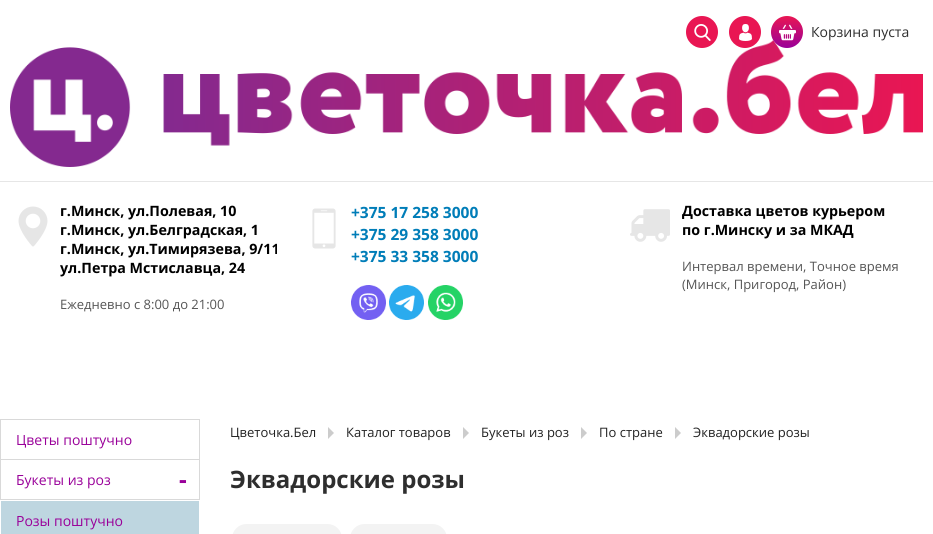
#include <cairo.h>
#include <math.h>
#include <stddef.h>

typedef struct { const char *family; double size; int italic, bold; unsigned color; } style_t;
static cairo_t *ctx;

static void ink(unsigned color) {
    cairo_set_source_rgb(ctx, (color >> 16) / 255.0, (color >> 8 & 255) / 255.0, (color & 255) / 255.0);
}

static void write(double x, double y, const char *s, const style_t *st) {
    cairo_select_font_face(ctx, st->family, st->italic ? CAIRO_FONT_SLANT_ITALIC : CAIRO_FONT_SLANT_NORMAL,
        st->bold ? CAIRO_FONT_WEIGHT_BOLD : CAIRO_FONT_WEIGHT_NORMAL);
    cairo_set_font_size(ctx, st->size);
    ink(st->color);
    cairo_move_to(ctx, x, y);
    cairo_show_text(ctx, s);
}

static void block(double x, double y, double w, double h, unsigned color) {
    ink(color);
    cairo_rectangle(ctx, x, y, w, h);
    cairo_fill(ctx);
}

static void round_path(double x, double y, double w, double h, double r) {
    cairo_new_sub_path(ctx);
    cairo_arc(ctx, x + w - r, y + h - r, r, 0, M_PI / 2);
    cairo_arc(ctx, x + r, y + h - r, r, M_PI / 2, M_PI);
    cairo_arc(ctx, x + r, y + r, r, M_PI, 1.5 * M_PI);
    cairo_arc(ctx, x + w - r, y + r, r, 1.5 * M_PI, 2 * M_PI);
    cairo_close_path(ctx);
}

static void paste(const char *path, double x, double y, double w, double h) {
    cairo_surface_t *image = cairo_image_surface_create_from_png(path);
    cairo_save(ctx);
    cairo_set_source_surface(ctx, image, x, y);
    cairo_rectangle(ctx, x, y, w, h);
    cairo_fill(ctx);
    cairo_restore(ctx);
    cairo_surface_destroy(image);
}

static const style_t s1 = {"Open Sans", 14, 0, 0, 0x2e2e2e};
static const style_t s2 = {"Open Sans", 14.25, 0, 1, 0x000000};
static const style_t s3 = {"Open Sans", 13, 0, 0, 0x555555};
static const style_t s4 = {"Open Sans", 15.5, 0, 1, 0x007db8};
static const style_t s5 = {"Open Sans", 14, 0, 0, 0x990099};
static const style_t s6 = {"Open Sans", 24, 0, 1, 0x990099};
static const style_t s7 = {"Open Sans", 13, 0, 0, 0x222222};
static const style_t s8 = {"Open Sans", 24, 0, 1, 0x2e2e2e};

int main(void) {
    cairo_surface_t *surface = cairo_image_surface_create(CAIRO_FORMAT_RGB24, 933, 534);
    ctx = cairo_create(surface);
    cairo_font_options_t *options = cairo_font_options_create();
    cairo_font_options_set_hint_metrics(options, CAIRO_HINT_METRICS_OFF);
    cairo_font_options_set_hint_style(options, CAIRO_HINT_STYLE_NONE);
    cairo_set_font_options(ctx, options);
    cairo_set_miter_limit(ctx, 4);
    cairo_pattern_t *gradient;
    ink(0xffffff);
    cairo_paint(ctx);
    paste("pic4.png", 10, 40, 913, 127);
    ink(0xe91653);
    cairo_arc(ctx, 702, 32, 16, 0, 2 * M_PI);
    cairo_fill(ctx);
    paste("pic1.png", 694, 24, 17, 17);
    cairo_arc(ctx, 745, 32, 16, 0, 2 * M_PI);
    cairo_fill(ctx);
    paste("pic2.png", 739, 24, 13, 17);
    gradient = cairo_pattern_create_linear(787, 16, 787, 48);
    cairo_pattern_add_color_stop_rgba(gradient, 0, 0.914, 0.086, 0.325, 1);
    cairo_pattern_add_color_stop_rgba(gradient, 1, 0.6, 0, 0.6, 1);
    cairo_set_source(ctx, gradient);
    cairo_pattern_destroy(gradient);
    cairo_arc(ctx, 787, 32, 16, 0, 2 * M_PI);
    cairo_fill(ctx);
    paste("pic3.png", 779, 24, 17, 17);
    write(811, 37, "Корзина пуста", &s1);
    block(0, 181, 933, 1, 0xe6e6e6);
    paste("pic5.png", 18, 206, 30, 41);
    write(60, 216, "г.Минск, ул.Полевая, 10", &s2);
    write(60, 235, "г.Минск, ул.Белградская, 1", &s2);
    write(60, 254, "г.Минск, ул.Тимирязева, 9/11", &s2);
    write(60, 273, "ул.Петра Мстиславца, 24", &s2);
    write(60, 309, "Ежедневно с 8:00 до 21:00", &s3);
    paste("pic6.png", 312, 208, 24, 41);
    write(351, 218, "+375 17 258 3000", &s4);
    write(351, 240, "+375 29 358 3000", &s4);
    write(351, 262, "+375 33 358 3000", &s4);
    paste("pic7.png", 351, 285, 35, 35);
    paste("pic8.png", 389, 285, 35, 35);
    paste("pic9.png", 428, 285, 35, 35);
    paste("pic10.png", 630, 209, 40, 33);
    write(682, 216, "Доставка цветов курьером", &s2);
    write(682, 235, "по г.Минску и за МКАД", &s2);
    write(682, 271, "Интервал времени, Точное время", &s3);
    write(682, 289, "(Минск, Пригород, Район)", &s3);
    cairo_rectangle(ctx, 0.5, 419.5, 199, 40);
    ink(0xd9d9d9);
    cairo_set_line_width(ctx, 1);
    cairo_stroke(ctx);
    write(16, 445, "Цветы поштучно", &s5);
    cairo_rectangle(ctx, 0.5, 459.5, 199, 40);
    ink(0xd9d9d9);
    cairo_stroke(ctx);
    write(16, 485, "Букеты из роз", &s5);
    write(179, 488, "-", &s6);
    block(1, 501, 198, 33, 0xbed6e0);
    write(16, 526, "Розы поштучно", &s5);
    write(230, 437, "Цветочка.Бел", &s7);
    ink(0xcccccc);
    cairo_new_path(ctx);
    cairo_move_to(ctx, 328, 439);
    cairo_line_to(ctx, 328, 427);
    cairo_line_to(ctx, 334, 433);
    cairo_close_path(ctx);
    cairo_fill(ctx);
    write(346, 437, "Каталог товаров", &s7);
    ink(0xcccccc);
    cairo_new_path(ctx);
    cairo_move_to(ctx, 463, 439);
    cairo_line_to(ctx, 463, 427);
    cairo_line_to(ctx, 469, 433);
    cairo_close_path(ctx);
    cairo_fill(ctx);
    write(481, 437, "Букеты из роз", &s7);
    ink(0xcccccc);
    cairo_new_path(ctx);
    cairo_move_to(ctx, 581, 439);
    cairo_line_to(ctx, 581, 427);
    cairo_line_to(ctx, 587, 433);
    cairo_close_path(ctx);
    cairo_fill(ctx);
    write(599, 437, "По стране", &s7);
    ink(0xcccccc);
    cairo_new_path(ctx);
    cairo_move_to(ctx, 675, 439);
    cairo_line_to(ctx, 675, 427);
    cairo_line_to(ctx, 681, 433);
    cairo_close_path(ctx);
    cairo_fill(ctx);
    write(693, 437, "Эквадорские розы", &s7);
    write(230, 488, "Эквадорские розы", &s8);
    ink(0xf3f3f3);
    round_path(232, 524, 110, 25, 14.5);
    cairo_fill(ctx);
    round_path(350, 524, 97, 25, 14.5);
    cairo_fill(ctx);
    cairo_surface_write_to_png(surface, "screenshot.png");
    cairo_font_options_destroy(options);
    cairo_destroy(ctx);
    cairo_surface_destroy(surface);
    return 0;
}
